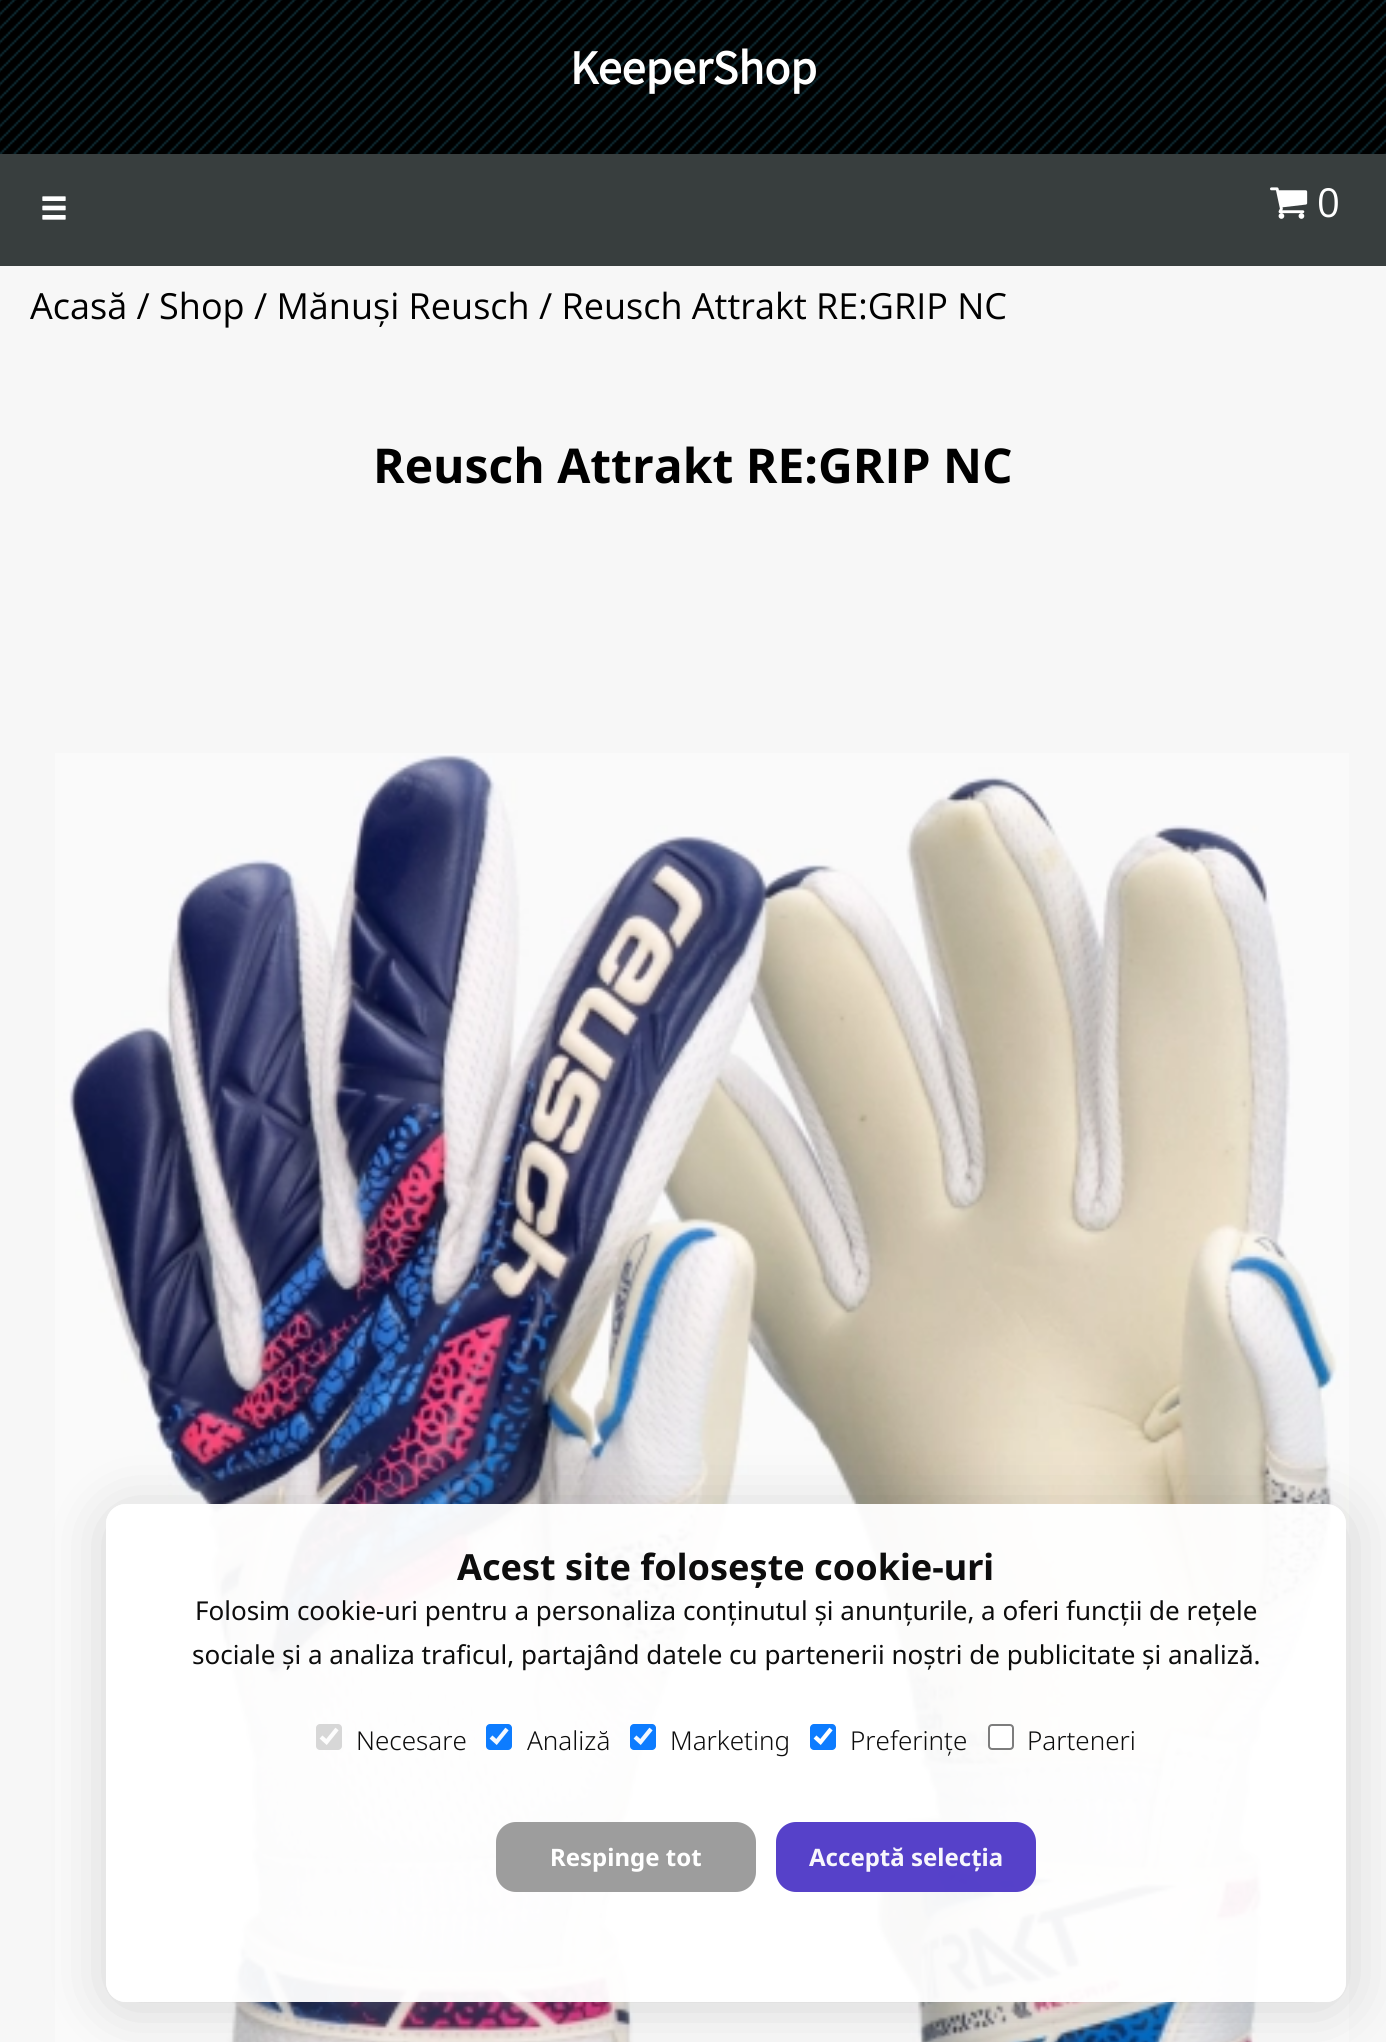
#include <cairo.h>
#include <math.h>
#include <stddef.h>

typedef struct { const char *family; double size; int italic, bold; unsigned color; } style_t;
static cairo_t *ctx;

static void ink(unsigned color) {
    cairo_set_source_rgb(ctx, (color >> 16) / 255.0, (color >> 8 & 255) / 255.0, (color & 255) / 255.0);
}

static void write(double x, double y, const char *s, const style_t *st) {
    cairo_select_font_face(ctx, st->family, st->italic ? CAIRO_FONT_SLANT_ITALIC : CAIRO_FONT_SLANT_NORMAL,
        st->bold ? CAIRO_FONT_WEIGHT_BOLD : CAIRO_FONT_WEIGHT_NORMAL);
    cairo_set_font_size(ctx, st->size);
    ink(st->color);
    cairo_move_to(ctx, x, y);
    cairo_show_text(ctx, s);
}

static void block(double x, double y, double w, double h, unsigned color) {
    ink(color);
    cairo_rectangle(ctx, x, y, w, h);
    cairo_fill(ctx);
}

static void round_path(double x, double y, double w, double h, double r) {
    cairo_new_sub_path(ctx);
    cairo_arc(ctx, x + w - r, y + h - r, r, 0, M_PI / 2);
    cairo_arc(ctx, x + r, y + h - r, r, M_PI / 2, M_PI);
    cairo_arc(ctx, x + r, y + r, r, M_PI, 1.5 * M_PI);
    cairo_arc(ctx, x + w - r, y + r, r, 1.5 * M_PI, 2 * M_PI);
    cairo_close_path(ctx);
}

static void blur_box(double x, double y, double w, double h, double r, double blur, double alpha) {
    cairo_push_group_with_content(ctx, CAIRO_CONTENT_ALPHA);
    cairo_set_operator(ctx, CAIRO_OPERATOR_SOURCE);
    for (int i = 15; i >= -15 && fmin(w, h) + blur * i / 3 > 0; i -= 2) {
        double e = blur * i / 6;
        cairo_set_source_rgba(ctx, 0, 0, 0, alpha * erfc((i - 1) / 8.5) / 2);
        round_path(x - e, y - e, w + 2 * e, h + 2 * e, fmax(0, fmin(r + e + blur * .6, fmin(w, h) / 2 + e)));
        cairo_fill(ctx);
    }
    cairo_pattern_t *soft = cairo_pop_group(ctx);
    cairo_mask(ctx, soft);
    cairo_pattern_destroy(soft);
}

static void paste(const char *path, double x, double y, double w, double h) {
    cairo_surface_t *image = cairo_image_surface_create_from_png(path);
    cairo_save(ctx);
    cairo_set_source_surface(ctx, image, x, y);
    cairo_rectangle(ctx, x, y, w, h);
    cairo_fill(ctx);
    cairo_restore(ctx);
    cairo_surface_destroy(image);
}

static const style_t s1 = {"Source Sans Pro", 48, 0, 1, 0xffffff};
static const style_t s2 = {"Open Sans", 40, 0, 0, 0xffffff};
static const style_t s3 = {"Open Sans", 36, 0, 0, 0x000000};
static const style_t s4 = {"Open Sans", 48, 0, 1, 0x000000};
static const style_t s5 = {"Noto Sans", 36, 0, 1, 0x0d0d0d};
static const style_t s6 = {"Noto Sans", 26, 0, 0, 0x0d0d0d};
static const style_t s7 = {"Noto Sans Light", 26, 0, 0, 0x0d0d0d};
static const style_t s8 = {"Noto Sans", 24, 0, 1, 0xffffff};
static const style_t s9 = {"Noto Sans", 24, 0, 1, 0xf7f6fc};

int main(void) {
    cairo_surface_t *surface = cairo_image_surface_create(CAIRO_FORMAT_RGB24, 1386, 2042);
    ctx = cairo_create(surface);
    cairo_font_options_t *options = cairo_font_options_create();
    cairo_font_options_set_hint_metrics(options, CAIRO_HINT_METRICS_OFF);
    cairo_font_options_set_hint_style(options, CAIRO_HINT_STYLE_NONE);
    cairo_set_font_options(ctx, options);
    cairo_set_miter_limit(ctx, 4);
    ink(0x000000);
    cairo_paint(ctx);
    paste("pic1.png", 0, 0, 1386, 154);
    write(570, 84, "KeeperShop", &s1);
    block(0, 154, 1386, 112, 0x383e3e);
    paste("pic2.png", 42, 196, 24, 24);
    paste("pic3.png", 1270, 187, 38, 32);
    write(1317, 217, "0", &s2);
    block(0, 266, 1386, 1776, 0xf7f7f7);
    write(30, 319, "Acasă / Shop / Mănuși Reusch / Reusch Attrakt RE:GRIP NC", &s3);
    write(373, 483, "Reusch Attrakt RE:GRIP NC", &s4);
    paste("pic4.png", 55, 753, 1294, 1289);
    cairo_save(ctx);
    cairo_set_fill_rule(ctx, CAIRO_FILL_RULE_EVEN_ODD);
    cairo_new_path(ctx);
    cairo_move_to(ctx, 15, 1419);
    cairo_line_to(ctx, 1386, 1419);
    cairo_line_to(ctx, 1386, 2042);
    cairo_line_to(ctx, 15, 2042);
    cairo_close_path(ctx);
    cairo_move_to(ctx, 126, 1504);
    cairo_line_to(ctx, 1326, 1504);
    cairo_curve_to(ctx, 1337, 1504, 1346, 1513, 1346, 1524);
    cairo_line_to(ctx, 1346, 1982);
    cairo_curve_to(ctx, 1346, 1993, 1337, 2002, 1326, 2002);
    cairo_line_to(ctx, 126, 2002);
    cairo_curve_to(ctx, 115, 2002, 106, 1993, 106, 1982);
    cairo_line_to(ctx, 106, 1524);
    cairo_curve_to(ctx, 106, 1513, 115, 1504, 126, 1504);
    cairo_close_path(ctx);
    cairo_clip(ctx);
    ink(0x000000);
    blur_box(106, 1510, 1240, 498, 20, 30, 0.15);
    cairo_restore(ctx);
    cairo_set_source_rgba(ctx, 1, 1, 1, 0.95);
    round_path(106, 1504, 1240, 498, 20);
    cairo_fill(ctx);
    write(457, 1580, "Acest site folosește cookie-uri", &s5);
    write(195, 1620, "Folosim cookie-uri pentru a personaliza conținutul și anunțurile, a oferi funcții de rețele", &s6);
    write(192, 1664, "sociale și a analiza traficul, partajând datele cu partenerii noștri de publicitate și analiză.", &s6);
    ink(0xd7d7d7);
    round_path(316, 1724, 26, 26, 4);
    cairo_fill(ctx);
    cairo_new_path(ctx);
    cairo_move_to(ctx, 321, 1737);
    cairo_line_to(ctx, 326.5, 1742);
    cairo_line_to(ctx, 337, 1729);
    ink(0xfdfdfd);
    cairo_set_line_width(ctx, 4.2);
    cairo_stroke(ctx);
    write(356, 1750, "Necesare", &s7);
    ink(0x0d7cff);
    round_path(486, 1724, 26, 26, 4);
    cairo_fill(ctx);
    cairo_new_path(ctx);
    cairo_move_to(ctx, 491, 1737);
    cairo_line_to(ctx, 496.5, 1742);
    cairo_line_to(ctx, 507, 1729);
    ink(0xf3f8ff);
    cairo_stroke(ctx);
    write(527, 1750, "Analiză", &s7);
    ink(0x0d7cff);
    round_path(630, 1724, 26, 26, 4);
    cairo_fill(ctx);
    cairo_new_path(ctx);
    cairo_move_to(ctx, 635, 1737);
    cairo_line_to(ctx, 640.5, 1742);
    cairo_line_to(ctx, 651, 1729);
    ink(0xf3f8ff);
    cairo_stroke(ctx);
    write(670, 1750, "Marketing", &s7);
    ink(0x0d7cff);
    round_path(810, 1724, 26, 26, 4);
    cairo_fill(ctx);
    cairo_new_path(ctx);
    cairo_move_to(ctx, 815, 1737);
    cairo_line_to(ctx, 820.5, 1742);
    cairo_line_to(ctx, 831, 1729);
    ink(0xffffff);
    cairo_stroke(ctx);
    write(850, 1750, "Preferințe", &s7);
    cairo_set_source_rgba(ctx, 1, 1, 1, 0.95);
    round_path(989, 1725, 24, 24, 3);
    cairo_fill_preserve(ctx);
    ink(0x7d7d7d);
    cairo_set_line_width(ctx, 2);
    cairo_stroke(ctx);
    write(1027, 1750, "Parteneri", &s7);
    cairo_set_source_rgba(ctx, 0.6, 0.6, 0.6, 0.95);
    round_path(496, 1822, 260, 70, 20);
    cairo_fill(ctx);
    write(550, 1866, "Respinge tot", &s8);
    cairo_set_source_rgba(ctx, 0.306, 0.22, 0.78, 0.95);
    round_path(776, 1822, 260, 70, 20);
    cairo_fill(ctx);
    write(809, 1866, "Acceptă selecția", &s9);
    cairo_surface_write_to_png(surface, "screenshot.png");
    cairo_font_options_destroy(options);
    cairo_destroy(ctx);
    cairo_surface_destroy(surface);
    return 0;
}
